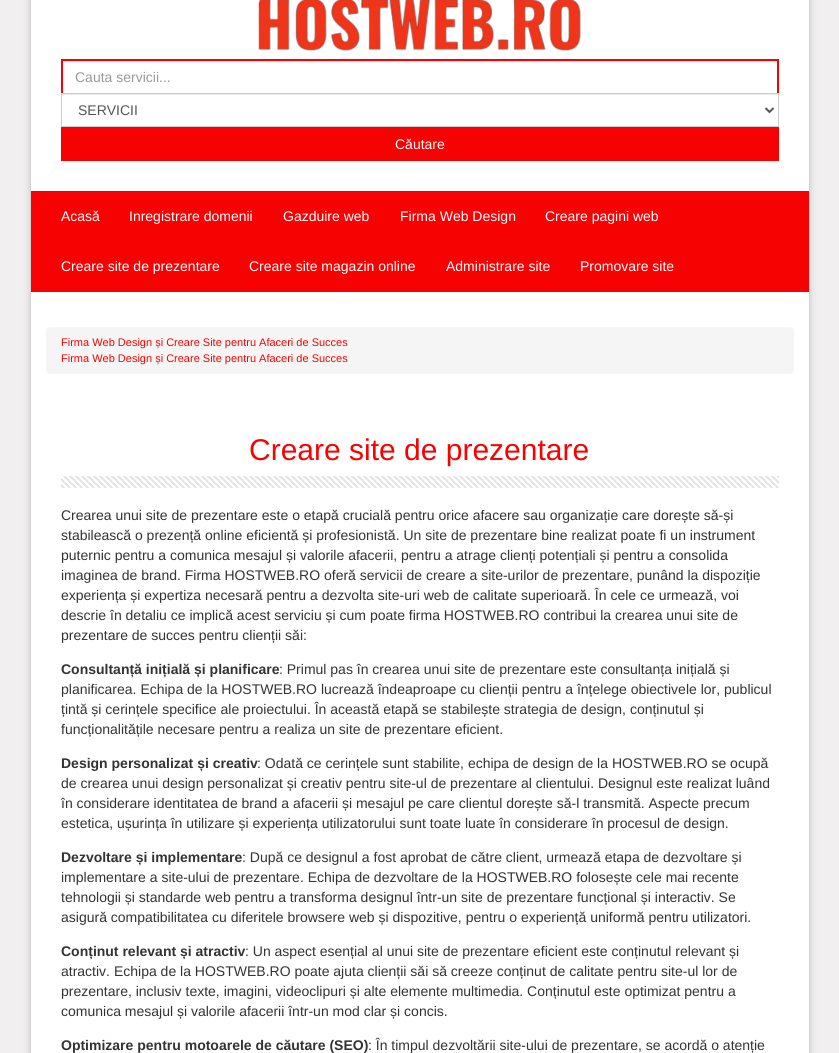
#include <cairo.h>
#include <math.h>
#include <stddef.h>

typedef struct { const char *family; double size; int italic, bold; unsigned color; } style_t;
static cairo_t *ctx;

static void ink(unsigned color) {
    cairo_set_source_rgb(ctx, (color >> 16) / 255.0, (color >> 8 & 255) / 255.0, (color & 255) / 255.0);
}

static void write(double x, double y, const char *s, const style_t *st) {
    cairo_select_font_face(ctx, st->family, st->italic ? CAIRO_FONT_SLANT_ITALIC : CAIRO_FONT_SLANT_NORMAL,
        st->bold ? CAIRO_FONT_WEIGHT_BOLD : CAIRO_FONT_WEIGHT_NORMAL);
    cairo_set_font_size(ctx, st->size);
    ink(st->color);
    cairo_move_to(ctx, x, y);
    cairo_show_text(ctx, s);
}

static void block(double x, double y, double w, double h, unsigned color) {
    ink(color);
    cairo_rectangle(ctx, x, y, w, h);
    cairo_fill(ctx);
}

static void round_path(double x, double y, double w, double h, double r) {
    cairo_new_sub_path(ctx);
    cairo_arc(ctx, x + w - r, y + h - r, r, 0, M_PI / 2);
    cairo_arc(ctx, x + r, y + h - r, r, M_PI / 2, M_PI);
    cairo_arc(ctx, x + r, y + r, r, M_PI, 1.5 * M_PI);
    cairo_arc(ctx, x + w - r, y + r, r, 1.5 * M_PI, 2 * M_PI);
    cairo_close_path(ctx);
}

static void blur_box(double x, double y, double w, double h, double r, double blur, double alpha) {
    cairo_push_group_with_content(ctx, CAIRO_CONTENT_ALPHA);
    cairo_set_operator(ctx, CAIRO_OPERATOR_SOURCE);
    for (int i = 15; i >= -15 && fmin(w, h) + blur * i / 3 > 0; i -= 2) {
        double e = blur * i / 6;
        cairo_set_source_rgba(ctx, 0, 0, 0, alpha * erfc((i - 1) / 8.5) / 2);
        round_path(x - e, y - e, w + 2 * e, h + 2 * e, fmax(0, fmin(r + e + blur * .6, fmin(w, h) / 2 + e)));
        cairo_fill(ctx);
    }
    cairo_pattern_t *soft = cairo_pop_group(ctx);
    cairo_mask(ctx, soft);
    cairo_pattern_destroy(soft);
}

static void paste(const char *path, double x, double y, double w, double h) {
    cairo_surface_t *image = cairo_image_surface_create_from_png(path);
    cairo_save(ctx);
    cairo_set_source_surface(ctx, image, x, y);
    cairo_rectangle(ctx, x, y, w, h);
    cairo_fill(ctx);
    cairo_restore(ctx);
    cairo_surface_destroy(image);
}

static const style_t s1 = {"Liberation Sans", 14, 0, 0, 0x999999};
static const style_t s2 = {"Liberation Sans", 14, 0, 0, 0x555555};
static const style_t s3 = {"Liberation Sans", 14, 0, 0, 0xffffff};
static const style_t s4 = {"Liberation Sans", 11, 0, 0, 0xf70202};
static const style_t s5 = {"Liberation Sans", 30, 0, 0, 0xf70202};
static const style_t s6 = {"Liberation Sans", 14, 0, 0, 0x333333};
static const style_t s7 = {"Liberation Sans", 14, 0, 1, 0x333333};

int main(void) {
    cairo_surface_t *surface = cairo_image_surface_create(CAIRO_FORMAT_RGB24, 839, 1053);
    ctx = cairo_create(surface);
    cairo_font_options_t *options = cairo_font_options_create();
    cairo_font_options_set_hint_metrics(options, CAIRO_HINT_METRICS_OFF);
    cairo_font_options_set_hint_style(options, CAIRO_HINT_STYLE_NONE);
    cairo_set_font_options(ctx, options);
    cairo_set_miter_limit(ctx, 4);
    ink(0xf1efef);
    cairo_paint(ctx);
    ink(0xcccccc);
    blur_box(30, -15, 780, 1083, 3, 4, 1);
    ink(0xffffff);
    cairo_rectangle(ctx, 30.5, -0.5, 779, 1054);
    cairo_fill_preserve(ctx);
    ink(0xd3d3d3);
    cairo_set_line_width(ctx, 1);
    cairo_stroke(ctx);
    paste("pic1.png", 258, 0, 323, 51);
    block(63, 61, 714, 1, 0xececec);
    block(61, 59, 718, 2, 0xf70202);
    block(777, 59, 2, 34, 0xf70202);
    block(61, 59, 2, 34, 0xf70202);
    write(75, 82, "Cauta servicii...", &s1);
    block(62, 94, 716, 1, 0xececec);
    cairo_rectangle(ctx, 61.5, 93.5, 717, 33);
    ink(0xcccccc);
    cairo_stroke(ctx);
    cairo_new_path(ctx);
    cairo_move_to(ctx, 765.5, 108);
    cairo_line_to(ctx, 769.5, 112);
    cairo_line_to(ctx, 773.5, 108);
    ink(0x555555);
    cairo_set_line_width(ctx, 2);
    cairo_stroke(ctx);
    write(78, 115, "SERVICII", &s2);
    block(61, 127, 718, 34, 0xf70202);
    write(395, 149, "Căutare", &s3);
    block(31, 192, 778, 100, 0xf70202);
    block(31, 191, 778, 1, 0xe40202);
    write(61, 221, "Acasă", &s3);
    write(129, 221, "Inregistrare domenii", &s3);
    write(283, 221, "Gazduire web", &s3);
    write(400, 221, "Firma Web Design", &s3);
    write(545, 221, "Creare pagini web", &s3);
    write(61, 271, "Creare site de prezentare", &s3);
    write(249, 271, "Creare site magazin online", &s3);
    write(446, 271, "Administrare site", &s3);
    write(580, 271, "Promovare site", &s3);
    ink(0xf5f5f5);
    round_path(46, 327, 748, 47, 4);
    cairo_fill(ctx);
    write(61, 346, "Firma Web Design și Creare Site pentru Afaceri de Succes", &s4);
    write(61, 362, "Firma Web Design și Creare Site pentru Afaceri de Succes", &s4);
    write(249, 460, "Creare site de prezentare", &s5);
    paste("pic2.png", 61, 476, 718, 12);
    write(61, 520, "Crearea unui site de prezentare este o etapă crucială pentru orice afacere sau organizație care dorește să-și", &s6);
    write(61, 540, "stabilească o prezență online eficientă și profesionistă. Un site de prezentare bine realizat poate fi un instrument", &s6);
    write(61, 560, "puternic pentru a comunica mesajul și valorile afacerii, pentru a atrage clienți potențiali și pentru a consolida", &s6);
    write(61, 580, "imaginea de brand. Firma HOSTWEB.RO oferă servicii de creare a site-urilor de prezentare, punând la dispoziție", &s6);
    write(61, 600, "experiența și expertiza necesară pentru a dezvolta site-uri web de calitate superioară. În cele ce urmează, voi", &s6);
    write(61, 620, "descrie în detaliu ce implică acest serviciu și cum poate firma HOSTWEB.RO contribui la crearea unui site de", &s6);
    write(61, 640, "prezentare de succes pentru clienții săi:", &s6);
    write(61, 674, "Consultanță inițială și planificare", &s7);
    write(279, 674, ": Primul pas în crearea unui site de prezentare este consultanța inițială și", &s6);
    write(61, 694, "planificarea. Echipa de la HOSTWEB.RO lucrează îndeaproape cu clienții pentru a înțelege obiectivele lor, publicul", &s6);
    write(61, 714, "țintă și cerințele specifice ale proiectului. În această etapă se stabilește strategia de design, conținutul și", &s6);
    write(61, 734, "funcționalitățile necesare pentru a realiza un site de prezentare eficient.", &s6);
    write(61, 768, "Design personalizat și creativ", &s7);
    write(257, 768, ": Odată ce cerințele sunt stabilite, echipa de design de la HOSTWEB.RO se ocupă", &s6);
    write(61, 788, "de crearea unui design personalizat și creativ pentru site-ul de prezentare al clientului. Designul este realizat luând", &s6);
    write(61, 808, "în considerare identitatea de brand a afacerii și mesajul pe care clientul dorește să-l transmită. Aspecte precum", &s6);
    write(61, 828, "estetica, ușurința în utilizare și experiența utilizatorului sunt toate luate în considerare în procesul de design.", &s6);
    write(61, 862, "Dezvoltare și implementare", &s7);
    write(242, 862, ": După ce designul a fost aprobat de către client, urmează etapa de dezvoltare și", &s6);
    write(61, 882, "implementare a site-ului de prezentare. Echipa de dezvoltare de la HOSTWEB.RO folosește cele mai recente", &s6);
    write(61, 902, "tehnologii și standarde web pentru a transforma designul într-un site de prezentare funcțional și interactiv. Se", &s6);
    write(61, 922, "asigură compatibilitatea cu diferitele browsere web și dispozitive, pentru o experiență uniformă pentru utilizatori.", &s6);
    write(61, 956, "Conținut relevant și atractiv", &s7);
    write(245, 956, ": Un aspect esențial al unui site de prezentare eficient este conținutul relevant și", &s6);
    write(61, 976, "atractiv. Echipa de la HOSTWEB.RO poate ajuta clienții săi să creeze conținut de calitate pentru site-ul lor de", &s6);
    write(61, 996, "prezentare, inclusiv texte, imagini, videoclipuri și alte elemente multimedia. Conținutul este optimizat pentru a", &s6);
    write(61, 1016, "comunica mesajul și valorile afacerii într-un mod clar și concis.", &s6);
    write(61, 1050, "Optimizare pentru motoarele de căutare (SEO)", &s7);
    write(368, 1050, ": În timpul dezvoltării site-ului de prezentare, se acordă o atenție", &s6);
    cairo_surface_write_to_png(surface, "screenshot.png");
    cairo_font_options_destroy(options);
    cairo_destroy(ctx);
    cairo_surface_destroy(surface);
    return 0;
}
